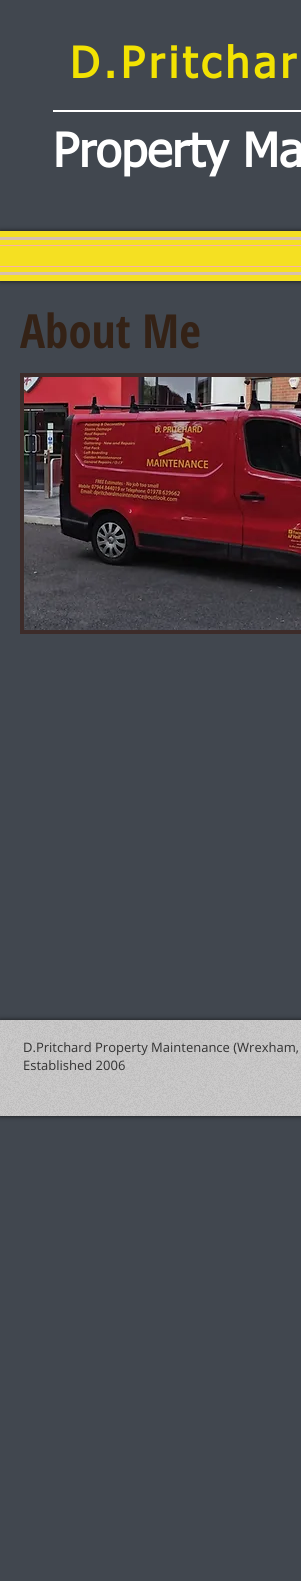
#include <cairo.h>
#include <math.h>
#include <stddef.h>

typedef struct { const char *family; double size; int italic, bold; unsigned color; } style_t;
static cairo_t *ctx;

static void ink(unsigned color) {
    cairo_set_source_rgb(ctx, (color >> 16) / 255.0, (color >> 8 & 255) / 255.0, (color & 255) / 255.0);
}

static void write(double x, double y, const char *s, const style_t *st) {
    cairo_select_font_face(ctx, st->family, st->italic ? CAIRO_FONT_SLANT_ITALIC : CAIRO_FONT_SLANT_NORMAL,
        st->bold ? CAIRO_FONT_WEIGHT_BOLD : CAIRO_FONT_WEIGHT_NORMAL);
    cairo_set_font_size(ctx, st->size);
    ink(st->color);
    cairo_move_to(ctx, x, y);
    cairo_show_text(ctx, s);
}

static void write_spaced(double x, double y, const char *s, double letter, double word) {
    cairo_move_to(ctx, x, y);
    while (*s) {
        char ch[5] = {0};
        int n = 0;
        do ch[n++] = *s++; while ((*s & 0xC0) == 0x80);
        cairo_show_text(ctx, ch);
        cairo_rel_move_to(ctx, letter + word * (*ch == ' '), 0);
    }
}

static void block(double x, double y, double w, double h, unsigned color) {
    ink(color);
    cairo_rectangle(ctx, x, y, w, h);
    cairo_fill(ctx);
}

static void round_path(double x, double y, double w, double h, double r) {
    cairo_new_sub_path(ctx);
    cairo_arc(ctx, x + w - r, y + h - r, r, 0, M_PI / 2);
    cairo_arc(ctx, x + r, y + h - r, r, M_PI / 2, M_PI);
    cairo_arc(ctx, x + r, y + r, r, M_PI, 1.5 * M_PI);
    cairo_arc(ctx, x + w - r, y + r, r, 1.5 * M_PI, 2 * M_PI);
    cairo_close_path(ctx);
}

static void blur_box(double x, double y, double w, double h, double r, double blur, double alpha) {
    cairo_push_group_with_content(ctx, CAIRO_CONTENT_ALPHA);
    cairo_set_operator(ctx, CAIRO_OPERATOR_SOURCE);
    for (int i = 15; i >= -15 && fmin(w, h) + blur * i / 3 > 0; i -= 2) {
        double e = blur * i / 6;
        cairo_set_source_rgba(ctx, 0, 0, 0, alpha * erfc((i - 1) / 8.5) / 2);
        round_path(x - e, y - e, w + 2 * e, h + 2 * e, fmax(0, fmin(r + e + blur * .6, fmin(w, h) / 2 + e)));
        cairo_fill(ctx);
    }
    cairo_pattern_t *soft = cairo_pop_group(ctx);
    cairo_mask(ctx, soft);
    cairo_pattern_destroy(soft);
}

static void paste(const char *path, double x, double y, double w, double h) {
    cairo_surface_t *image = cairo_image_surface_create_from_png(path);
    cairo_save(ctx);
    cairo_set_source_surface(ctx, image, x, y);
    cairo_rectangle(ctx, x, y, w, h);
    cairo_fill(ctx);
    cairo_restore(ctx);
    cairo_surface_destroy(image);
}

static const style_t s1 = {"tahoma", 47, 0, 1, 0xffffff};
static const style_t s2 = {"Open Sans Condensed", 47, 0, 1, 0x342216};
static const style_t s3 = {"Open Sans", 13, 0, 0, 0x323232};

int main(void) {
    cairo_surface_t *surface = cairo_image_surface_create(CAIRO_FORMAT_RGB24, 301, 1581);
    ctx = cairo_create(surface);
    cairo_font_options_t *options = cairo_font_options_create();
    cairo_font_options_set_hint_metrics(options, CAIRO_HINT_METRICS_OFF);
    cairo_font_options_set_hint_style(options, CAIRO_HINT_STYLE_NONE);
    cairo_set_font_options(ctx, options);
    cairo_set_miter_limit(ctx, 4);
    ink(0x41474f);
    cairo_paint(ctx);
    cairo_select_font_face(ctx, "tahoma", CAIRO_FONT_SLANT_NORMAL, CAIRO_FONT_WEIGHT_BOLD);
    cairo_set_font_size(ctx, 43);
    ink(0xf2e202);
    write_spaced(70, 78, "D.Pritchar", 4.25, 0);
    block(53, 110, 248, 2, 0xffffff);
    write(53, 167, "Property Ma", &s1);
    ink(0x000000);
    blur_box(0, 231, 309, 50, 0, 2.5, 0.7);
    block(0, 231, 301, 50, 0xf5e022);
    block(0, 237, 301, 3, 0xd7c0af);
    block(0, 272, 301, 3, 0xd7c0af);
    block(0, 245, 301, 1, 0xf7b2aa);
    block(0, 266, 301, 1, 0xf7b2aa);
    write(20, 348, "About Me", &s2);
    block(20, 373, 281, 261, 0x3d2c2a);
    paste("pic1.png", 24, 377, 277, 253);
    ink(0x000000);
    blur_box(0, 1020, 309, 96, 0, 2.5, 0.7);
    block(0, 1020, 301, 96, 0xcbcaca);
    paste("pic2.png", 0, 1020, 301, 96);
    write(23, 1052, "D.Pritchard Property Maintenance (Wrexham,", &s3);
    write(23, 1070, "Established 2006", &s3);
    cairo_surface_write_to_png(surface, "screenshot.png");
    cairo_font_options_destroy(options);
    cairo_destroy(ctx);
    cairo_surface_destroy(surface);
    return 0;
}
